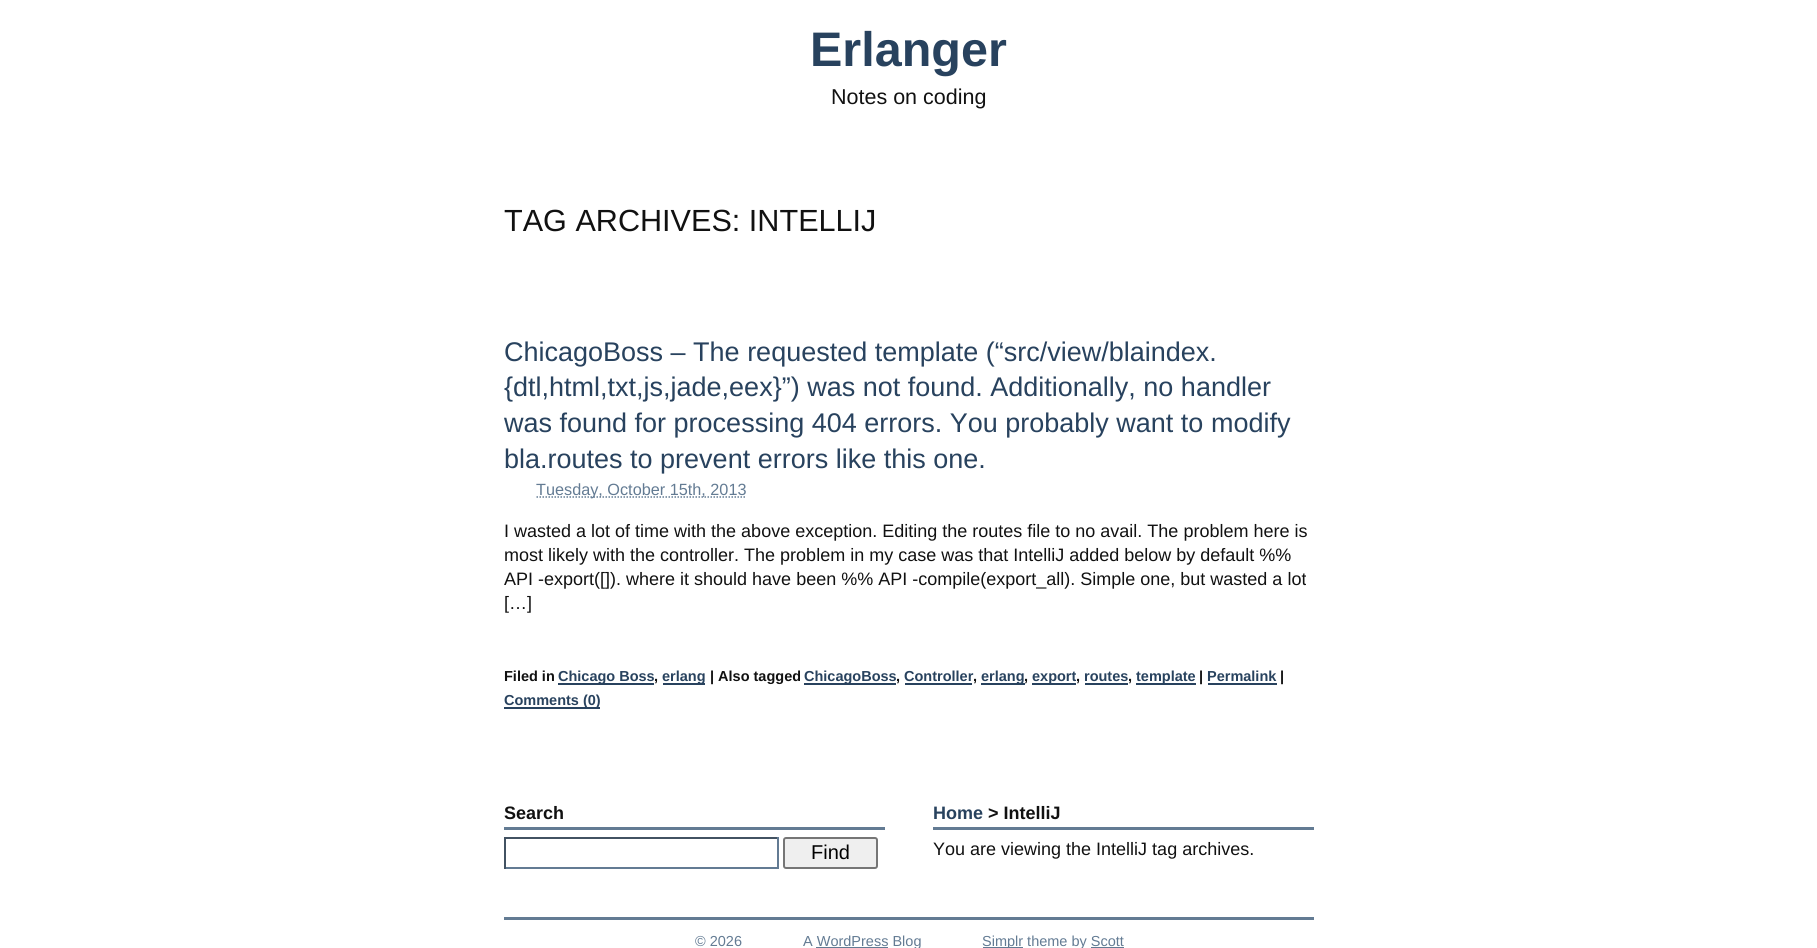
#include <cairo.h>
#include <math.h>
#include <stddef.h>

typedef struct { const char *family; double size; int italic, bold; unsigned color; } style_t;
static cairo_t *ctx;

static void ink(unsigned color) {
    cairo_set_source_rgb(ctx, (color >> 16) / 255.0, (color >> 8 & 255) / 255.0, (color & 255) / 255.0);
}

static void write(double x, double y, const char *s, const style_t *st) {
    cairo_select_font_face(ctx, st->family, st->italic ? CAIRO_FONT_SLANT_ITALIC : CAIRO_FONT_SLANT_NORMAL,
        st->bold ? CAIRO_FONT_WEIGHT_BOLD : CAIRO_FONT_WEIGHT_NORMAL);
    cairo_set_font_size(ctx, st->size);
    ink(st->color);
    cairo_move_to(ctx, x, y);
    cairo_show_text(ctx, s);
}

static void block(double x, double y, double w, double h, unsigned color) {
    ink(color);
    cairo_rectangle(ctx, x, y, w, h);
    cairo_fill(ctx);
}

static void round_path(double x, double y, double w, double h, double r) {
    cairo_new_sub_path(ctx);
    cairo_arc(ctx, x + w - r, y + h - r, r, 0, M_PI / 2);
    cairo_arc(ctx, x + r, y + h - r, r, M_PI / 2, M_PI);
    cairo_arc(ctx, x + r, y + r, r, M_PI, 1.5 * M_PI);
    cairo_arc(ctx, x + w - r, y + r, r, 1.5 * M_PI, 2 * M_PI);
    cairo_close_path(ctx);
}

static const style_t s1 = {"Liberation Sans", 48.5, 0, 1, 0x28425e};
static const style_t s2 = {"Liberation Sans", 21.5, 0, 0, 0x111111};
static const style_t s3 = {"Liberation Sans", 30.6, 0, 0, 0x111111};
static const style_t s4 = {"Liberation Sans", 27, 0, 0, 0x28425e};
static const style_t s5 = {"Liberation Sans", 16.25, 0, 0, 0x637b93};
static const style_t s6 = {"Liberation Sans", 18, 0, 0, 0x111111};
static const style_t s7 = {"Liberation Sans", 14.5, 0, 1, 0x111111};
static const style_t s8 = {"Liberation Sans", 14.5, 0, 1, 0x28425e};
static const style_t s9 = {"Liberation Sans", 18, 0, 1, 0x111111};
static const style_t s10 = {"Liberation Sans", 20, 0, 0, 0x000000};
static const style_t s11 = {"Liberation Sans", 18, 0, 1, 0x28425e};
static const style_t s12 = {"Liberation Sans", 14.5, 0, 0, 0x637b93};

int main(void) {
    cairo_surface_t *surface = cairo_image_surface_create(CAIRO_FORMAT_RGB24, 1817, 948);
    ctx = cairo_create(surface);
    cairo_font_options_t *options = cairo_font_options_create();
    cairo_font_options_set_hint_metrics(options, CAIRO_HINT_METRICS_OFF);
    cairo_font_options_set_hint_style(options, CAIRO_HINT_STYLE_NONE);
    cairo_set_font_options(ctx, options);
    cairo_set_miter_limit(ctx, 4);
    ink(0xffffff);
    cairo_paint(ctx);
    write(810, 66, "Erlanger", &s1);
    write(831, 104, "Notes on coding", &s2);
    write(504, 231, "TAG ARCHIVES: INTELLIJ", &s3);
    write(504, 361, "ChicagoBoss – The requested template (“src/view/blaindex.", &s4);
    write(504, 396, "{dtl,html,txt,js,jade,eex}”) was not found. Additionally, no handler", &s4);
    write(504, 432, "was found for processing 404 errors. You probably want to modify", &s4);
    write(504, 468, "bla.routes to prevent errors like this one.", &s4);
    cairo_new_path(ctx);
    cairo_move_to(ctx, 536.5, 497);
    cairo_line_to(ctx, 746, 497);
    ink(0x637b93);
    cairo_set_line_width(ctx, 1.5);
    cairo_set_dash(ctx, (double[]){1.5, 1.5}, 2, 0);
    cairo_stroke(ctx);
    write(536, 495, "Tuesday, October 15th, 2013", &s5);
    write(504, 537, "I wasted a lot of time with the above exception. Editing the routes file to no avail. The problem here is", &s6);
    write(504, 561, "most likely with the controller. The problem in my case was that IntelliJ added below by default %%", &s6);
    write(504, 585, "API -export([]). where it should have been %% API -compile(export_all). Simple one, but wasted a lot", &s6);
    write(504, 609, "[…]", &s6);
    write(504, 681, "Filed in", &s7);
    block(558, 683, 96, 2, 0x28425e);
    write(558, 681, "Chicago Boss", &s8);
    write(654, 681, ",", &s7);
    block(663, 683, 42, 2, 0x28425e);
    write(662, 681, "erlang", &s8);
    write(710, 681, "| Also tagged", &s7);
    block(804, 683, 92, 2, 0x28425e);
    write(804, 681, "ChicagoBoss", &s8);
    write(896, 681, ",", &s7);
    write(904, 681, "Controller", &s8);
    write(973, 681, ",", &s7);
    block(905, 683, 67, 2, 0x28425e);
    block(981, 683, 44, 2, 0x28425e);
    write(981, 681, "erlang", &s8);
    write(1024, 681, ",", &s7);
    block(1032, 683, 44, 2, 0x28425e);
    write(1032, 681, "export", &s8);
    write(1076, 681, ",", &s7);
    write(1084, 681, "routes", &s8);
    write(1128, 681, ",", &s7);
    block(1085, 683, 43, 2, 0x28425e);
    block(1136, 683, 60, 2, 0x28425e);
    write(1136, 681, "template", &s8);
    write(1199, 681, "|", &s7);
    write(1207, 681, "Permalink", &s8);
    block(1208, 683, 69, 2, 0x28425e);
    write(1280, 681, "|", &s7);
    block(504, 707, 96, 2, 0x28425e);
    write(504, 705, "Comments (0)", &s8);
    block(504, 827, 381, 3, 0x637b93);
    write(504, 819, "Search", &s9);
    block(504, 837, 275, 2, 0x425262);
    block(777, 837, 2, 32, 0x637b93);
    block(504, 867, 275, 2, 0x637b93);
    block(504, 837, 2, 32, 0x425262);
    ink(0xefefef);
    round_path(784, 838, 93, 30, 2);
    cairo_fill_preserve(ctx);
    ink(0x767676);
    cairo_set_line_width(ctx, 2);
    cairo_set_dash(ctx, NULL, 0, 0);
    cairo_stroke(ctx);
    write(811, 859, "Find", &s10);
    block(933, 827, 381, 3, 0x637b93);
    write(933, 819, "Home", &s11);
    write(988, 819, "> IntelliJ", &s9);
    write(933, 855, "You are viewing the IntelliJ tag archives.", &s6);
    block(504, 917, 810, 3, 0x637b93);
    write(695, 946, "© 2026", &s12);
    write(803, 946, "A WordPress Blog", &s12);
    block(816, 947, 72, 1, 0x637b93);
    block(983, 947, 40, 1, 0x637b93);
    write(982, 946, "Simplr theme by Scott", &s12);
    block(1091, 947, 33, 1, 0x637b93);
    cairo_surface_write_to_png(surface, "screenshot.png");
    cairo_font_options_destroy(options);
    cairo_destroy(ctx);
    cairo_surface_destroy(surface);
    return 0;
}
